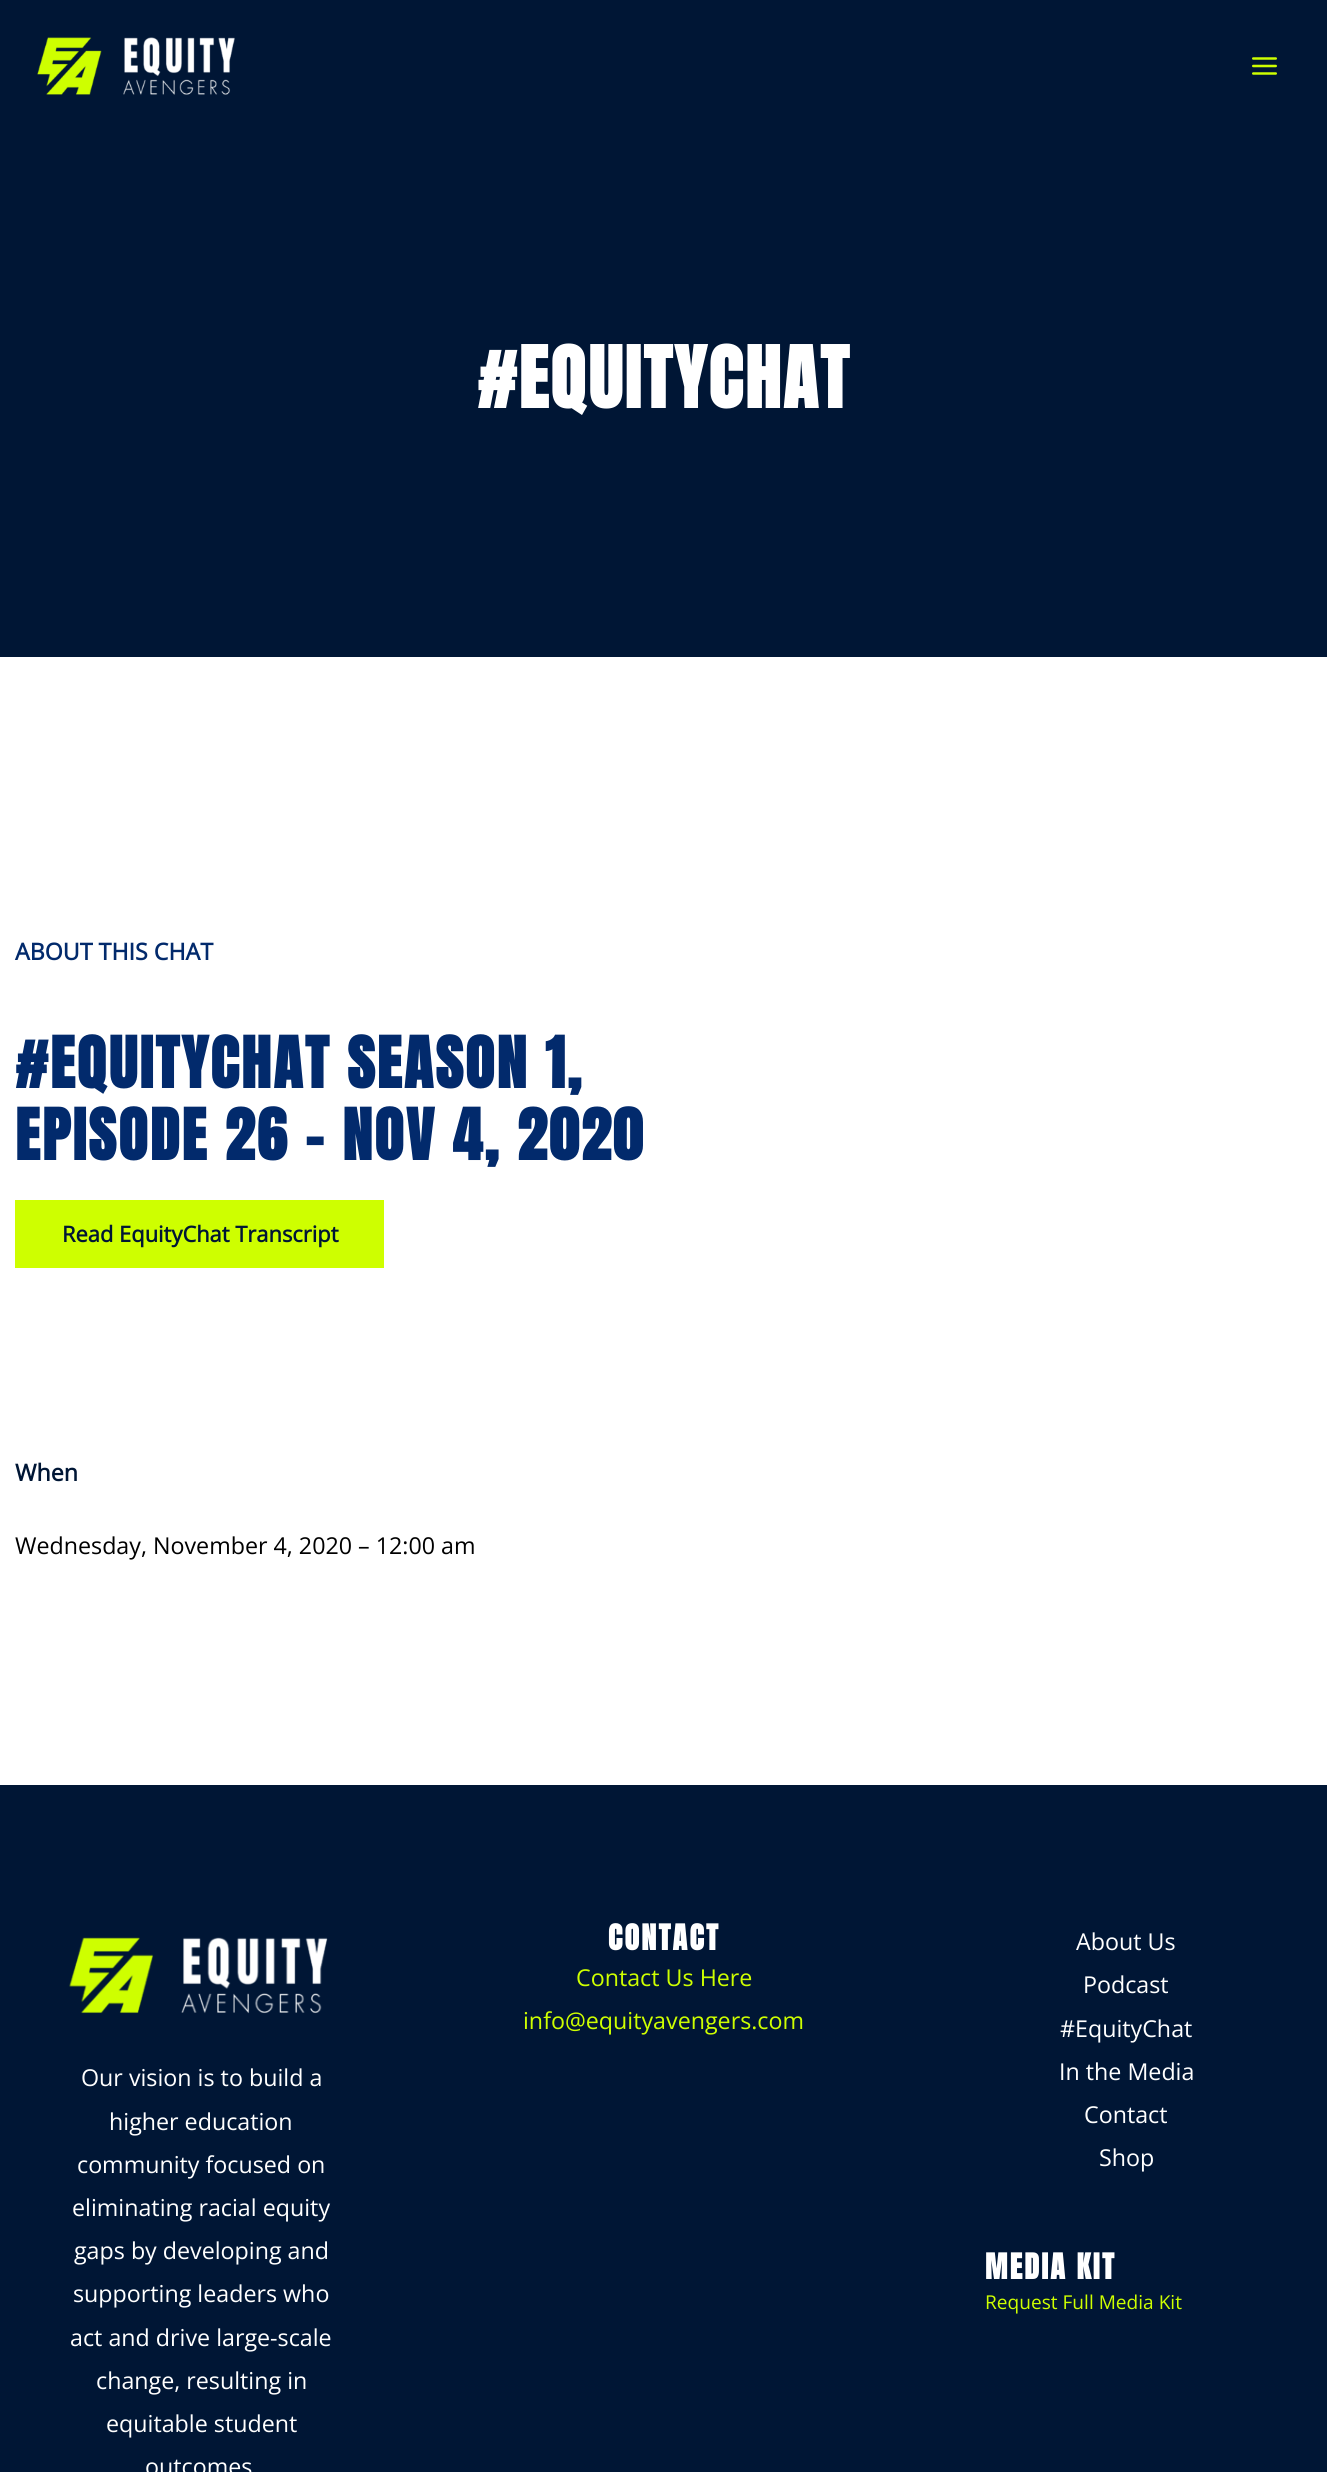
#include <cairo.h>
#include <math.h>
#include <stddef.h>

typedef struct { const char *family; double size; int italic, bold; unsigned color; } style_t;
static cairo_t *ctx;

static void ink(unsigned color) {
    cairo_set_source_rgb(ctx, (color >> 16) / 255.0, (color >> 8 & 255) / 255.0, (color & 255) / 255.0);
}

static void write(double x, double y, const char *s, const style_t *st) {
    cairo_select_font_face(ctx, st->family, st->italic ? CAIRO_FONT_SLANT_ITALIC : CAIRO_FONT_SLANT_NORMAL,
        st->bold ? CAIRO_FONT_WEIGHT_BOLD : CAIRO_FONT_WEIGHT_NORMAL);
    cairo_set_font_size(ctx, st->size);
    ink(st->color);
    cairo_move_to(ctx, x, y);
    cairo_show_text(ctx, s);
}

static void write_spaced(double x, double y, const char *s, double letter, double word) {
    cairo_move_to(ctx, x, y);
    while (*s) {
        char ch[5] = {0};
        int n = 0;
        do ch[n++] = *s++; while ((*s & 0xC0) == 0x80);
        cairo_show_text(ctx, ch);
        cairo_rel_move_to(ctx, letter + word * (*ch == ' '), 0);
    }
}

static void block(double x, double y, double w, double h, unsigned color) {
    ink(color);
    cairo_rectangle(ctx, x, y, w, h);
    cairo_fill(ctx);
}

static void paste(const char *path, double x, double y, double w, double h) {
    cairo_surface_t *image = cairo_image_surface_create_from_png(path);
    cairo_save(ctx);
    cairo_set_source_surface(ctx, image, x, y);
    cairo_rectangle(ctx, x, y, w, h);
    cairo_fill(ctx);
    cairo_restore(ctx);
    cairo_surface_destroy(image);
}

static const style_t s1 = {"Open Sans", 23.25, 0, 1, 0x022a6c};
static const style_t s2 = {"Open Sans", 21.9, 0, 1, 0x001635};
static const style_t s3 = {"Open Sans", 23.25, 0, 1, 0x001635};
static const style_t s4 = {"Open Sans", 23.25, 0, 0, 0x000000};
static const style_t s5 = {"Open Sans", 23.25, 0, 0, 0xffffff};
static const style_t s6 = {"Open Sans", 23.25, 0, 0, 0xceff00};
static const style_t s7 = {"Open Sans", 19.1, 0, 0, 0xceff00};

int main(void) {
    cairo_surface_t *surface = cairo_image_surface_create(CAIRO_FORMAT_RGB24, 1327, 2472);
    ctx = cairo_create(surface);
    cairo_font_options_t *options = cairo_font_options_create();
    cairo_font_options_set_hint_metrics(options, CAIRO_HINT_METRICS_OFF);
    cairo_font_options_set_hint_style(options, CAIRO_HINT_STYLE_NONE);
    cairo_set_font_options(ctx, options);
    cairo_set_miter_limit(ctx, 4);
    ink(0x001635);
    cairo_paint(ctx);
    paste("pic1.png", 37, 37, 198, 58);
    paste("pic2.png", 1252, 57, 25, 18);
    cairo_select_font_face(ctx, "Anton", CAIRO_FONT_SLANT_NORMAL, CAIRO_FONT_WEIGHT_BOLD);
    cairo_set_font_size(ctx, 72);
    ink(0xffffff);
    write_spaced(477, 408, "#EQUITYCHAT", 2.25, 0);
    block(0, 657, 1327, 1128, 0xffffff);
    write(15, 960, "ABOUT THIS CHAT", &s1);
    cairo_select_font_face(ctx, "Anton", CAIRO_FONT_SLANT_NORMAL, CAIRO_FONT_WEIGHT_BOLD);
    cairo_set_font_size(ctx, 60);
    write_spaced(15, 1088, "#EQUITYCHAT SEASON 1,", 2.25, 0);
    write_spaced(15, 1160, "EPISODE 26 – NOV 4, 2020", 2.25, 0);
    block(15, 1200, 369, 68, 0xceff00);
    write(62, 1242, "Read EquityChat Transcript", &s2);
    write(15, 1481, "When", &s3);
    write(15, 1554, "Wednesday, November 4, 2020 – 12:00 am", &s4);
    paste("pic3.png", 69, 1937, 259, 77);
    write(81, 2086, "Our vision is to build a", &s5);
    write(109, 2130, "higher education", &s5);
    write(77, 2173, "community focused on", &s5);
    write(72, 2216, "eliminating racial equity", &s5);
    write(74, 2259, "gaps by developing and", &s5);
    write(73, 2302, "supporting leaders who", &s5);
    write(70, 2346, "act and drive large-scale", &s5);
    write(96, 2389, "change, resulting in", &s5);
    write(106, 2432, "equitable student", &s5);
    write(145, 2475, "outcomes", &s5);
    cairo_select_font_face(ctx, "Anton", CAIRO_FONT_SLANT_NORMAL, CAIRO_FONT_WEIGHT_BOLD);
    cairo_set_font_size(ctx, 30);
    write_spaced(608, 1950, "CONTACT", 2.25, 0);
    write(576, 1986, "Contact Us Here", &s6);
    write(523, 2029, "info@equityavengers.com", &s6);
    write(1076, 1950, "About Us", &s5);
    write(1083, 1993, "Podcast", &s5);
    write(1060, 2037, "#EquityChat", &s5);
    write(1059, 2080, "In the Media", &s5);
    write(1084, 2123, "Contact", &s5);
    write(1099, 2166, "Shop", &s5);
    cairo_select_font_face(ctx, "Anton", CAIRO_FONT_SLANT_NORMAL, CAIRO_FONT_WEIGHT_BOLD);
    cairo_set_font_size(ctx, 30);
    write_spaced(985, 2279, "MEDIA KIT", 2.25, 0);
    write(985, 2309, "Request Full Media Kit", &s7);
    cairo_surface_write_to_png(surface, "screenshot.png");
    cairo_font_options_destroy(options);
    cairo_destroy(ctx);
    cairo_surface_destroy(surface);
    return 0;
}
